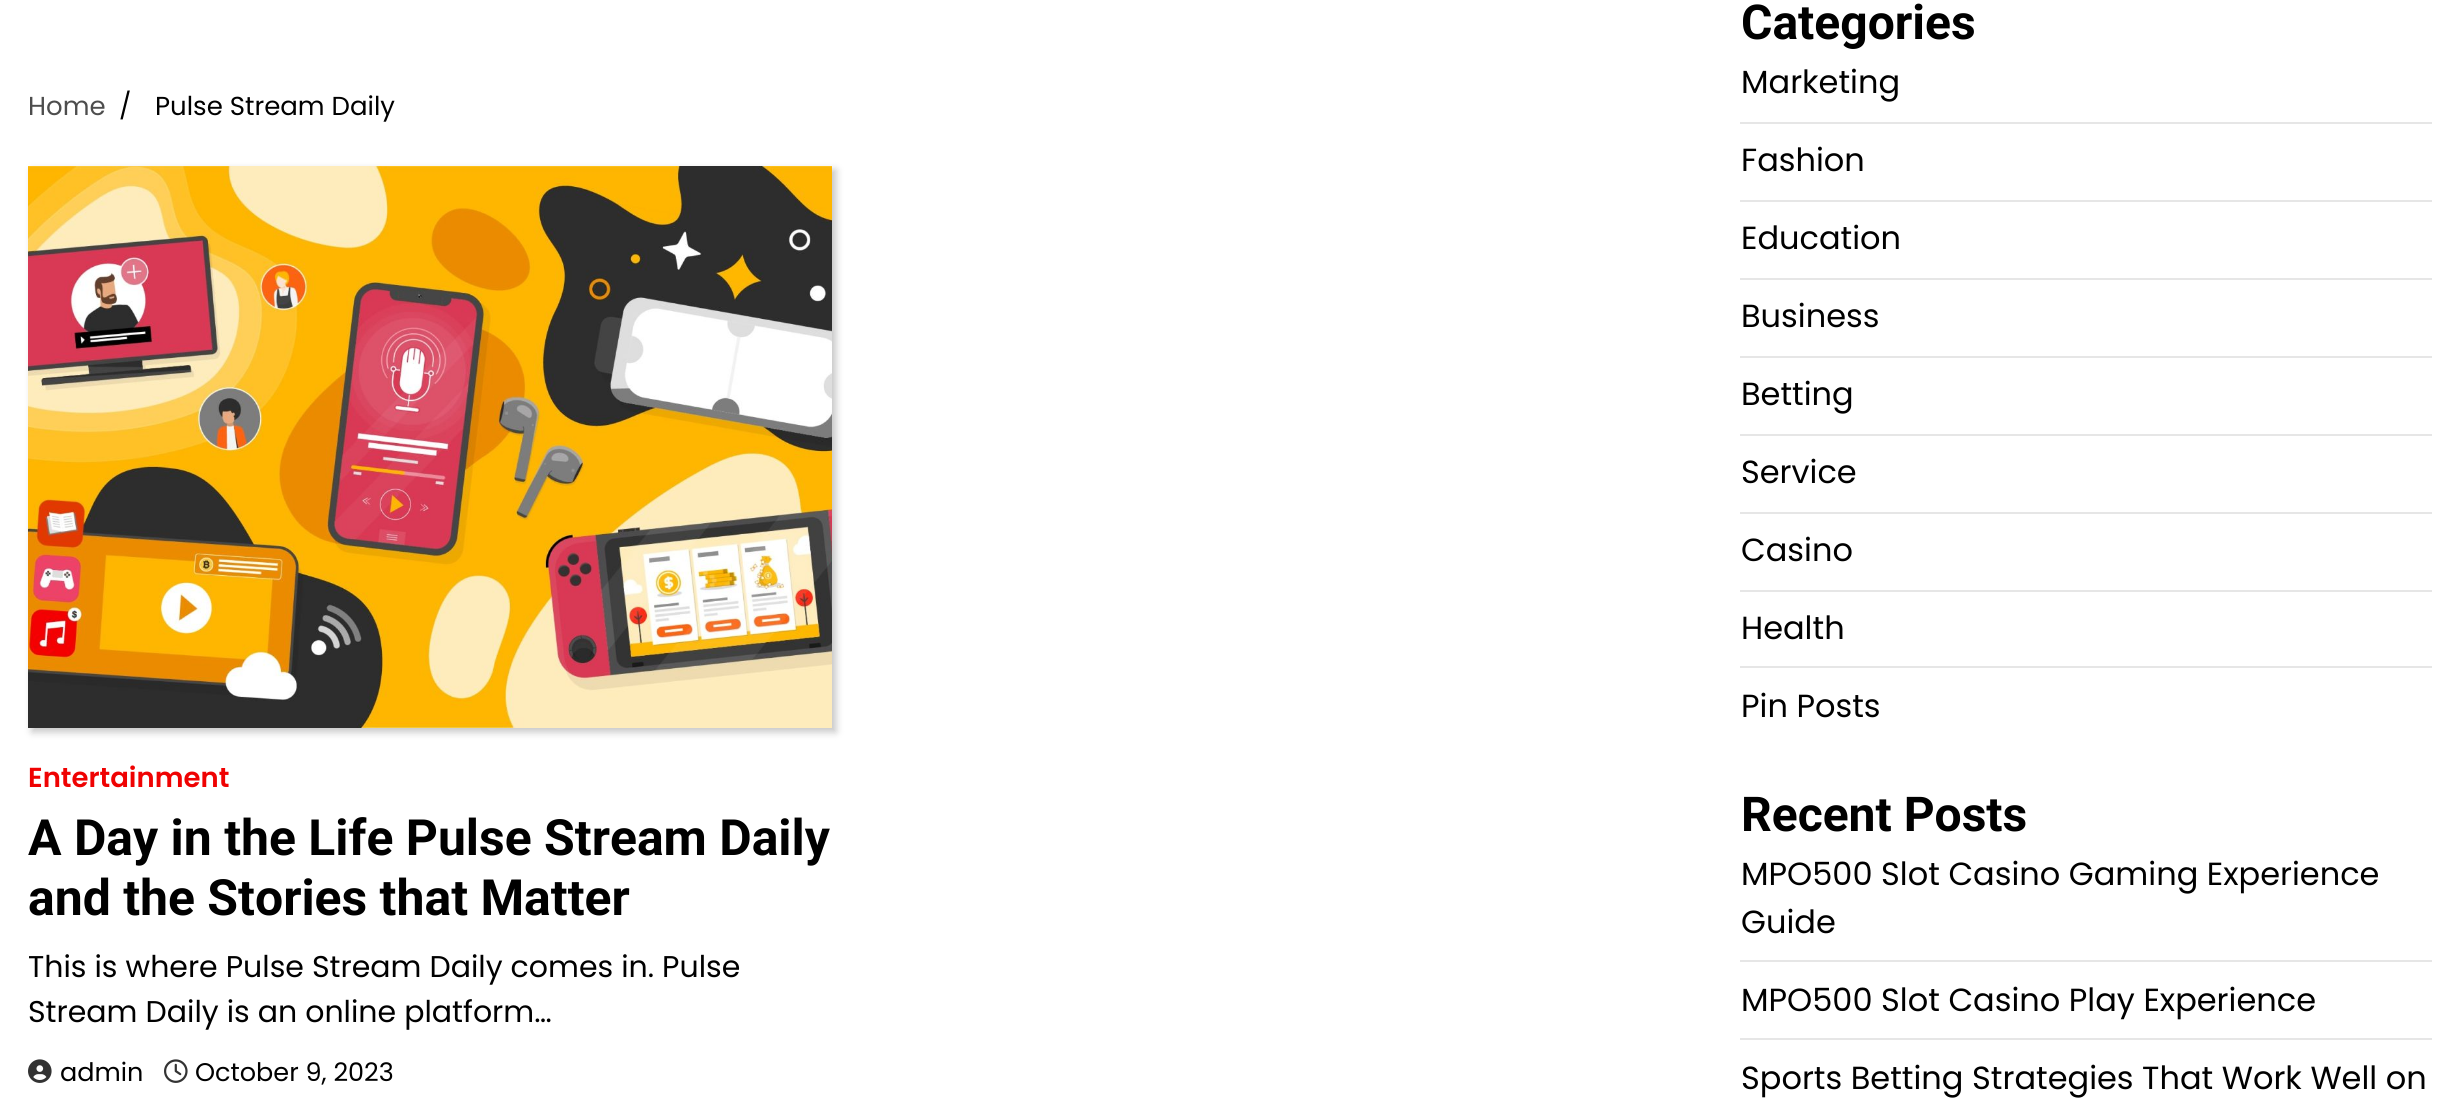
#include <cairo.h>
#include <math.h>
#include <stddef.h>

typedef struct { const char *family; double size; int italic, bold; unsigned color; } style_t;
static cairo_t *ctx;

static void ink(unsigned color) {
    cairo_set_source_rgb(ctx, (color >> 16) / 255.0, (color >> 8 & 255) / 255.0, (color & 255) / 255.0);
}

static void write(double x, double y, const char *s, const style_t *st) {
    cairo_select_font_face(ctx, st->family, st->italic ? CAIRO_FONT_SLANT_ITALIC : CAIRO_FONT_SLANT_NORMAL,
        st->bold ? CAIRO_FONT_WEIGHT_BOLD : CAIRO_FONT_WEIGHT_NORMAL);
    cairo_set_font_size(ctx, st->size);
    ink(st->color);
    cairo_move_to(ctx, x, y);
    cairo_show_text(ctx, s);
}

static void block(double x, double y, double w, double h, unsigned color) {
    ink(color);
    cairo_rectangle(ctx, x, y, w, h);
    cairo_fill(ctx);
}

static void round_path(double x, double y, double w, double h, double r) {
    cairo_new_sub_path(ctx);
    cairo_arc(ctx, x + w - r, y + h - r, r, 0, M_PI / 2);
    cairo_arc(ctx, x + r, y + h - r, r, M_PI / 2, M_PI);
    cairo_arc(ctx, x + r, y + r, r, M_PI, 1.5 * M_PI);
    cairo_arc(ctx, x + w - r, y + r, r, 1.5 * M_PI, 2 * M_PI);
    cairo_close_path(ctx);
}

static void blur_box(double x, double y, double w, double h, double r, double blur, double alpha) {
    cairo_push_group_with_content(ctx, CAIRO_CONTENT_ALPHA);
    cairo_set_operator(ctx, CAIRO_OPERATOR_SOURCE);
    for (int i = 15; i >= -15 && fmin(w, h) + blur * i / 3 > 0; i -= 2) {
        double e = blur * i / 6;
        cairo_set_source_rgba(ctx, 0, 0, 0, alpha * erfc((i - 1) / 8.5) / 2);
        round_path(x - e, y - e, w + 2 * e, h + 2 * e, fmax(0, fmin(r + e + blur * .6, fmin(w, h) / 2 + e)));
        cairo_fill(ctx);
    }
    cairo_pattern_t *soft = cairo_pop_group(ctx);
    cairo_mask(ctx, soft);
    cairo_pattern_destroy(soft);
}

static void paste(const char *path, double x, double y, double w, double h) {
    cairo_surface_t *image = cairo_image_surface_create_from_png(path);
    cairo_save(ctx);
    cairo_set_source_surface(ctx, image, x, y);
    cairo_rectangle(ctx, x, y, w, h);
    cairo_fill(ctx);
    cairo_restore(ctx);
    cairo_surface_destroy(image);
}

static const style_t s1 = {"Poppins", 26, 0, 0, 0x4d4d4d};
static const style_t s2 = {"Poppins", 26, 0, 0, 0x000000};
static const style_t s3 = {"Poppins SemiBold", 27.5, 0, 0, 0xef0202};
static const style_t s4 = {"Roboto", 49.9, 0, 1, 0x000000};
static const style_t s5 = {"Poppins", 30, 0, 0, 0x000000};
static const style_t s6 = {"Poppins", 25.5, 0, 0, 0x000000};
static const style_t s7 = {"Roboto", 48, 0, 1, 0x000000};
static const style_t s8 = {"Poppins", 32, 0, 0, 0x000000};

int main(void) {
    cairo_surface_t *surface = cairo_image_surface_create(CAIRO_FORMAT_RGB24, 2460, 1107);
    ctx = cairo_create(surface);
    cairo_font_options_t *options = cairo_font_options_create();
    cairo_font_options_set_hint_metrics(options, CAIRO_HINT_METRICS_OFF);
    cairo_font_options_set_hint_style(options, CAIRO_HINT_STYLE_NONE);
    cairo_set_font_options(ctx, options);
    cairo_set_miter_limit(ctx, 4);
    ink(0xffffff);
    cairo_paint(ctx);
    write(28, 115, "Home", &s1);
    write(119, 115, "/", &s2);
    write(155, 115, "Pulse Stream Daily", &s2);
    ink(0x808080);
    blur_box(32, 170, 804, 562, 0, 4, 0.46);
    paste("pic1.png", 28, 166, 804, 562);
    write(28, 787, "Entertainment", &s3);
    write(28, 855, "A Day in the Life Pulse Stream Daily", &s4);
    write(28, 915, "and the Stories that Matter", &s4);
    write(28, 977, "This is where Pulse Stream Daily comes in. Pulse", &s5);
    write(28, 1022, "Stream Daily is an online platform…", &s5);
    paste("pic2.png", 28, 1059, 24, 24);
    write(60, 1081, "admin", &s6);
    paste("pic3.png", 164, 1059, 24, 24);
    write(195, 1081, "October 9, 2023", &s6);
    write(1741, 39, "Categories", &s7);
    block(1740, 122, 692, 2, 0xe6e6e6);
    write(1741, 93, "Marketing", &s8);
    block(1740, 200, 692, 2, 0xe6e6e6);
    write(1741, 171, "Fashion", &s8);
    block(1740, 278, 692, 2, 0xe6e6e6);
    write(1741, 249, "Education", &s8);
    block(1740, 356, 692, 2, 0xe6e6e6);
    write(1741, 327, "Business", &s8);
    block(1740, 434, 692, 2, 0xe6e6e6);
    write(1741, 405, "Betting", &s8);
    block(1740, 512, 692, 2, 0xe6e6e6);
    write(1741, 483, "Service", &s8);
    block(1740, 590, 692, 2, 0xe6e6e6);
    write(1741, 561, "Casino", &s8);
    block(1740, 666, 692, 2, 0xe6e6e6);
    write(1741, 639, "Health", &s8);
    write(1741, 717, "Pin Posts", &s8);
    write(1741, 831, "Recent Posts", &s7);
    block(1740, 960, 692, 2, 0xe6e6e6);
    write(1741, 885, "MPO500 Slot Casino Gaming Experience", &s8);
    write(1741, 933, "Guide", &s8);
    block(1740, 1038, 692, 2, 0xe6e6e6);
    write(1741, 1011, "MPO500 Slot Casino Play Experience", &s8);
    write(1741, 1089, "Sports Betting Strategies That Work Well on", &s8);
    cairo_surface_write_to_png(surface, "screenshot.png");
    cairo_font_options_destroy(options);
    cairo_destroy(ctx);
    cairo_surface_destroy(surface);
    return 0;
}
